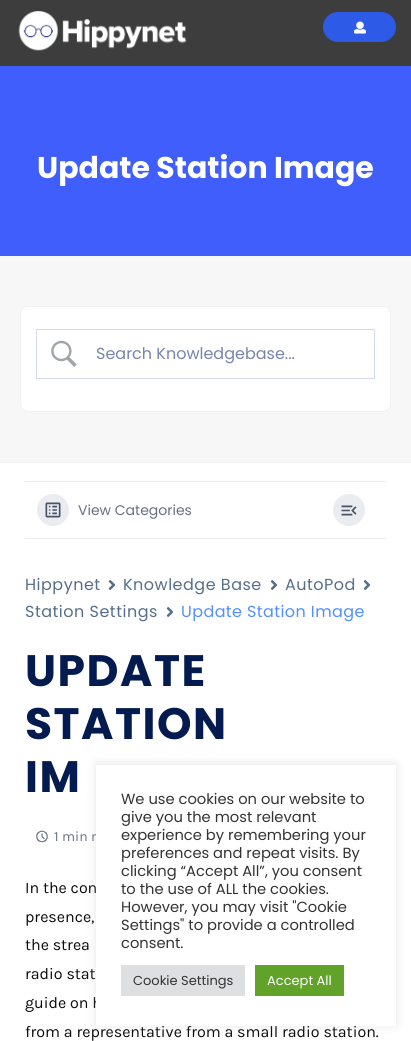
#include <cairo.h>
#include <math.h>
#include <stddef.h>

typedef struct { const char *family; double size; int italic, bold; unsigned color; } style_t;
static cairo_t *ctx;

static void ink(unsigned color) {
    cairo_set_source_rgb(ctx, (color >> 16) / 255.0, (color >> 8 & 255) / 255.0, (color & 255) / 255.0);
}

static void write(double x, double y, const char *s, const style_t *st) {
    cairo_select_font_face(ctx, st->family, st->italic ? CAIRO_FONT_SLANT_ITALIC : CAIRO_FONT_SLANT_NORMAL,
        st->bold ? CAIRO_FONT_WEIGHT_BOLD : CAIRO_FONT_WEIGHT_NORMAL);
    cairo_set_font_size(ctx, st->size);
    ink(st->color);
    cairo_move_to(ctx, x, y);
    cairo_show_text(ctx, s);
}

static void write_spaced(double x, double y, const char *s, double letter, double word) {
    cairo_move_to(ctx, x, y);
    while (*s) {
        char ch[5] = {0};
        int n = 0;
        do ch[n++] = *s++; while ((*s & 0xC0) == 0x80);
        cairo_show_text(ctx, ch);
        cairo_rel_move_to(ctx, letter + word * (*ch == ' '), 0);
    }
}

static void block(double x, double y, double w, double h, unsigned color) {
    ink(color);
    cairo_rectangle(ctx, x, y, w, h);
    cairo_fill(ctx);
}

static void round_path(double x, double y, double w, double h, double r) {
    cairo_new_sub_path(ctx);
    cairo_arc(ctx, x + w - r, y + h - r, r, 0, M_PI / 2);
    cairo_arc(ctx, x + r, y + h - r, r, M_PI / 2, M_PI);
    cairo_arc(ctx, x + r, y + r, r, M_PI, 1.5 * M_PI);
    cairo_arc(ctx, x + w - r, y + r, r, 1.5 * M_PI, 2 * M_PI);
    cairo_close_path(ctx);
}

static void blur_box(double x, double y, double w, double h, double r, double blur, double alpha) {
    cairo_push_group_with_content(ctx, CAIRO_CONTENT_ALPHA);
    cairo_set_operator(ctx, CAIRO_OPERATOR_SOURCE);
    for (int i = 15; i >= -15 && fmin(w, h) + blur * i / 3 > 0; i -= 2) {
        double e = blur * i / 6;
        cairo_set_source_rgba(ctx, 0, 0, 0, alpha * erfc((i - 1) / 8.5) / 2);
        round_path(x - e, y - e, w + 2 * e, h + 2 * e, fmax(0, fmin(r + e + blur * .6, fmin(w, h) / 2 + e)));
        cairo_fill(ctx);
    }
    cairo_pattern_t *soft = cairo_pop_group(ctx);
    cairo_mask(ctx, soft);
    cairo_pattern_destroy(soft);
}

static void paste(const char *path, double x, double y, double w, double h) {
    cairo_surface_t *image = cairo_image_surface_create_from_png(path);
    cairo_save(ctx);
    cairo_set_source_surface(ctx, image, x, y);
    cairo_rectangle(ctx, x, y, w, h);
    cairo_fill(ctx);
    cairo_restore(ctx);
    cairo_surface_destroy(image);
}

static const style_t s1 = {"Poppins", 30, 0, 1, 0xffffff};
static const style_t s2 = {"Poppins", 16, 0, 0, 0x7884ac};
static const style_t s3 = {"Poppins", 14, 0, 0, 0x667085};
static const style_t s4 = {"Karla", 14, 0, 0, 0x667085};
static const style_t s5 = {"Karla", 16, 0, 0, 0x0a0a0a};
static const style_t s6 = {"Poppins", 14.7, 0, 0, 0x333333};
static const style_t s7 = {"Poppins", 13, 0, 0, 0x333333};
static const style_t s8 = {"Poppins", 13, 0, 0, 0xffffff};

int main(void) {
    cairo_surface_t *surface = cairo_image_surface_create(CAIRO_FORMAT_RGB24, 411, 1041);
    ctx = cairo_create(surface);
    cairo_font_options_t *options = cairo_font_options_create();
    cairo_font_options_set_hint_metrics(options, CAIRO_HINT_METRICS_OFF);
    cairo_font_options_set_hint_style(options, CAIRO_HINT_STYLE_NONE);
    cairo_set_font_options(ctx, options);
    cairo_set_miter_limit(ctx, 4);
    ink(0x3f5efb);
    cairo_paint(ctx);
    block(0, 0, 411, 66, 0x3d3d3d);
    paste("pic1.png", 18, 11, 169, 40);
    ink(0x2e5ae8);
    round_path(323, 12, 73, 30, 15);
    cairo_fill(ctx);
    paste("pic2.png", 354, 21, 12, 13);
    write(37, 178, "Update Station Image", &s1);
    block(0, 256, 411, 206, 0xf7f7f7);
    block(0, 462, 411, 1, 0xf1f1f1);
    ink(0xffffff);
    round_path(20.5, 306.5, 370, 105, 7.5);
    cairo_fill_preserve(ctx);
    ink(0xf1f1f1);
    cairo_set_line_width(ctx, 1);
    cairo_stroke(ctx);
    cairo_rectangle(ctx, 36.5, 329.5, 338, 49);
    ink(0xd3d9ef);
    cairo_stroke(ctx);
    paste("pic3.png", 51, 340, 26, 27);
    write(96, 359, "Search Knowledgebase...", &s2);
    block(0, 463, 411, 578, 0xffffff);
    block(25, 481, 361, 1, 0xeaecf0);
    block(25, 538, 361, 1, 0xeaecf0);
    cairo_new_path(ctx);
    cairo_arc(ctx, 53, 510, 16, 0, 2 * M_PI);
    cairo_fill(ctx);
    paste("pic4.png", 45, 502, 16, 16);
    write(78, 515, "View Categories", &s3);
    ink(0xeaecf0);
    cairo_new_path(ctx);
    cairo_arc(ctx, 349, 510, 16, 0, 2 * M_PI);
    cairo_fill(ctx);
    paste("pic5.png", 341, 505, 16, 11);
    cairo_set_font_size(ctx, 16);
    ink(0x566e8b);
    write_spaced(25, 590, "Hippynet", 0.5, 0);
    paste("pic6.png", 108, 580, 8, 10);
    write_spaced(123, 590, "Knowledge Base", 0.5, 0);
    paste("pic6.png", 270, 580, 8, 10);
    write_spaced(285, 590, "AutoPod", 0.5, 0);
    paste("pic6.png", 363, 580, 8, 10);
    write_spaced(25, 617, "Station Settings", 0.5, 0);
    paste("pic6.png", 166, 607, 8, 10);
    ink(0x528fff);
    write_spaced(181, 617, "Update Station Image", 0.4, 0);
    cairo_select_font_face(ctx, "Poppins", CAIRO_FONT_SLANT_NORMAL, CAIRO_FONT_WEIGHT_BOLD);
    cairo_set_font_size(ctx, 44);
    ink(0x031b4e);
    write_spaced(25, 686, "UPDATE", 1.5, 0);
    write_spaced(25, 739, "STATION", 1.5, 0);
    write_spaced(25, 792, "IM", 1.5, 0);
    paste("pic7.png", 36, 830, 12, 13);
    write(54, 841, "1 min r", &s4);
    write(25, 893, "In the con", &s5);
    write(25, 922, "presence,", &s5);
    write(25, 950, "the strea", &s5);
    write(25, 979, "radio stat", &s5);
    write(25, 1008, "guide on h", &s5);
    write(25, 1037, "from a representative from a small radio station.", &s5);
    ink(0xacabab);
    blur_box(96, 764, 300, 261, 0, 5, 0.3);
    block(96, 765, 300, 261, 0xffffff);
    write(121, 804, "We use cookies on our website to", &s6);
    write(121, 822, "give you the most relevant", &s6);
    write(121, 840, "experience by remembering your", &s6);
    write(121, 858, "preferences and repeat visits. By", &s6);
    write(121, 876, "clicking “Accept All”, you consent", &s6);
    write(121, 894, "to the use of ALL the cookies.", &s6);
    write(121, 912, "However, you may visit \"Cookie", &s6);
    write(121, 930, "Settings\" to provide a controlled", &s6);
    write(121, 948, "consent.", &s6);
    block(121, 965, 124, 31, 0xdedfe0);
    write(133, 985, "Cookie Settings", &s7);
    block(255, 965, 89, 31, 0x61a229);
    write(267, 985, "Accept All", &s8);
    cairo_surface_write_to_png(surface, "screenshot.png");
    cairo_font_options_destroy(options);
    cairo_destroy(ctx);
    cairo_surface_destroy(surface);
    return 0;
}
